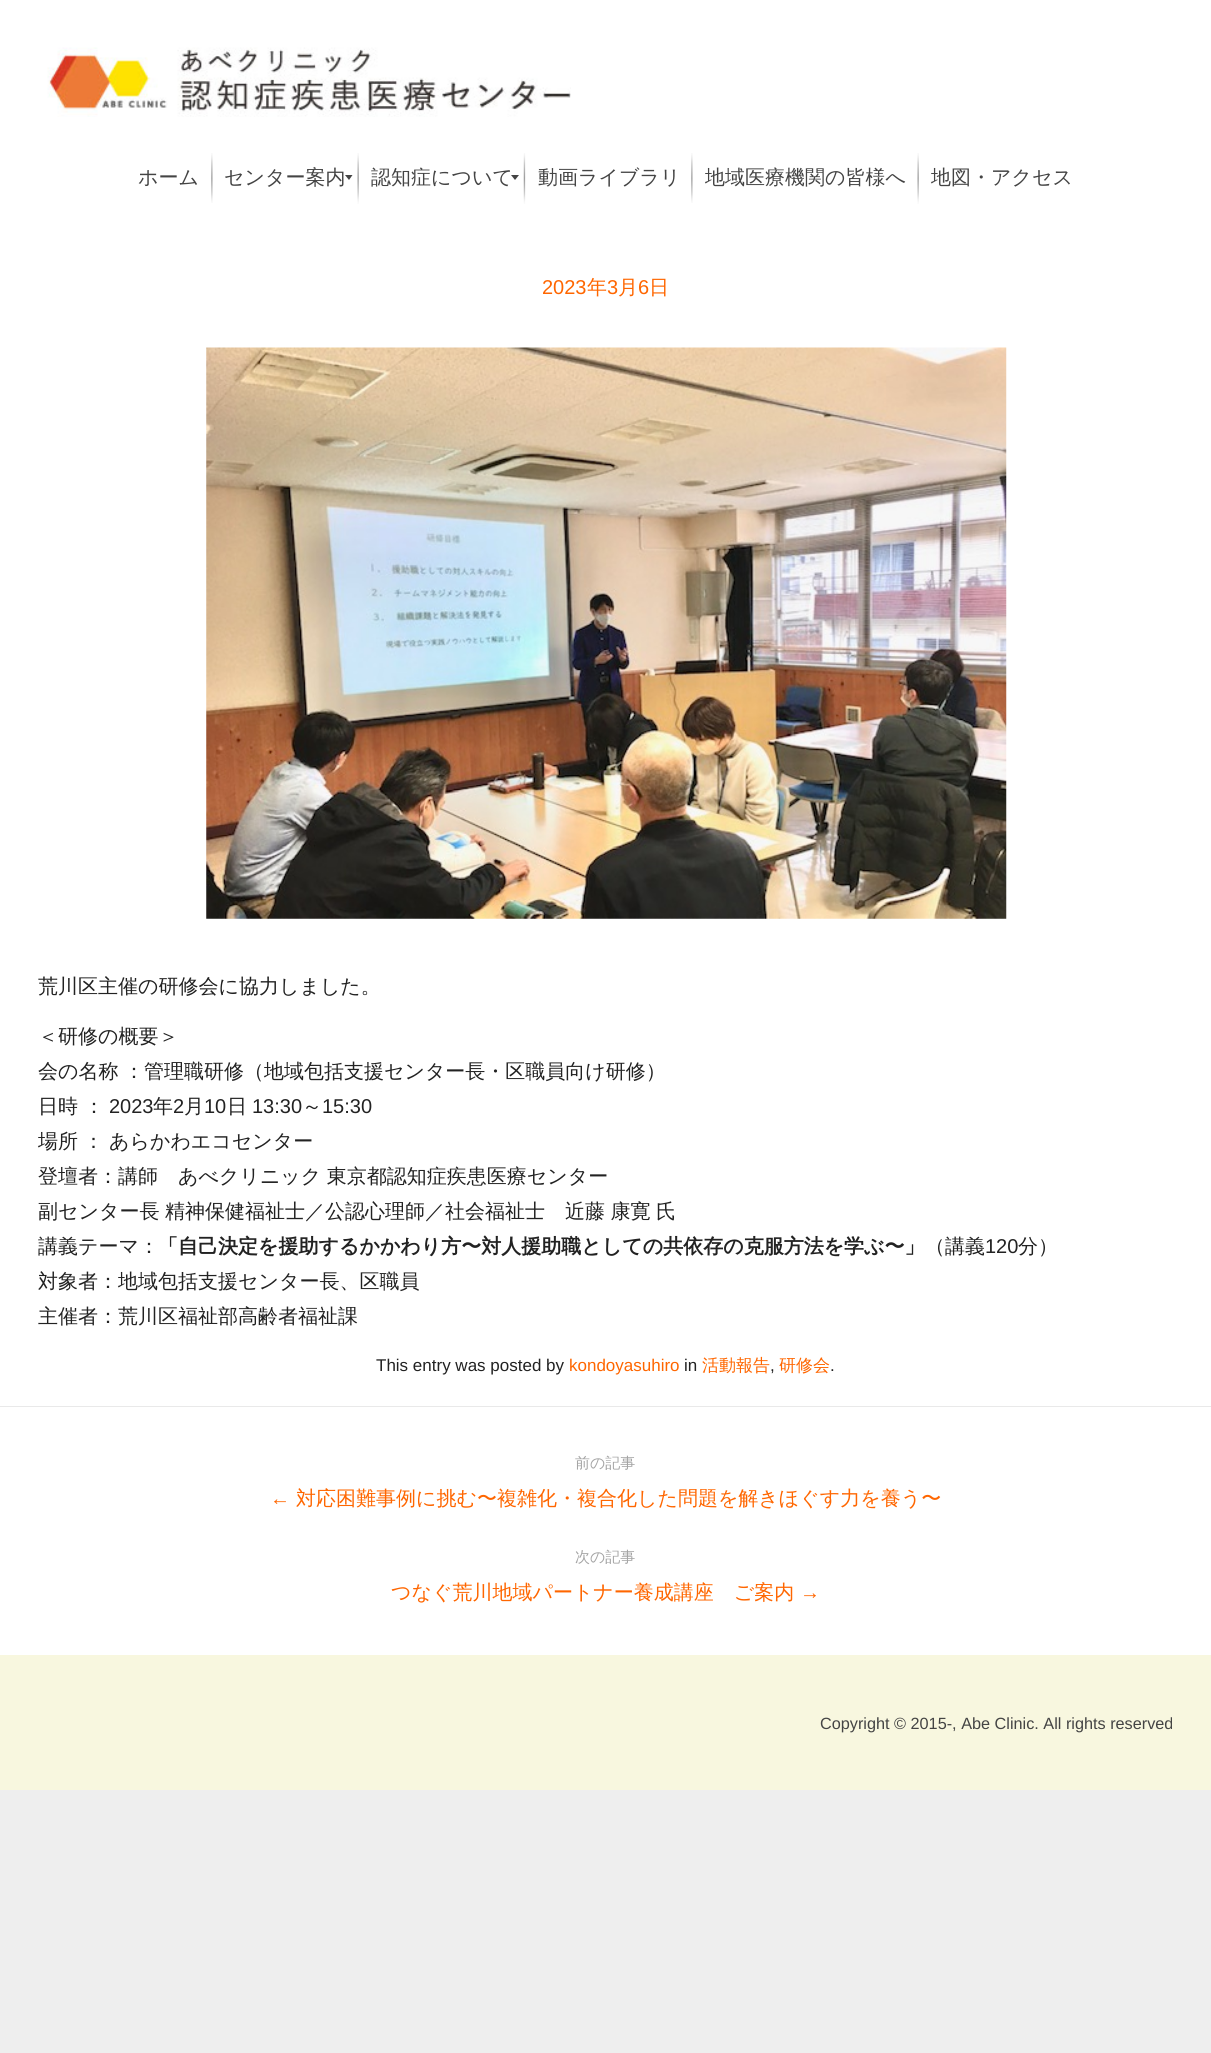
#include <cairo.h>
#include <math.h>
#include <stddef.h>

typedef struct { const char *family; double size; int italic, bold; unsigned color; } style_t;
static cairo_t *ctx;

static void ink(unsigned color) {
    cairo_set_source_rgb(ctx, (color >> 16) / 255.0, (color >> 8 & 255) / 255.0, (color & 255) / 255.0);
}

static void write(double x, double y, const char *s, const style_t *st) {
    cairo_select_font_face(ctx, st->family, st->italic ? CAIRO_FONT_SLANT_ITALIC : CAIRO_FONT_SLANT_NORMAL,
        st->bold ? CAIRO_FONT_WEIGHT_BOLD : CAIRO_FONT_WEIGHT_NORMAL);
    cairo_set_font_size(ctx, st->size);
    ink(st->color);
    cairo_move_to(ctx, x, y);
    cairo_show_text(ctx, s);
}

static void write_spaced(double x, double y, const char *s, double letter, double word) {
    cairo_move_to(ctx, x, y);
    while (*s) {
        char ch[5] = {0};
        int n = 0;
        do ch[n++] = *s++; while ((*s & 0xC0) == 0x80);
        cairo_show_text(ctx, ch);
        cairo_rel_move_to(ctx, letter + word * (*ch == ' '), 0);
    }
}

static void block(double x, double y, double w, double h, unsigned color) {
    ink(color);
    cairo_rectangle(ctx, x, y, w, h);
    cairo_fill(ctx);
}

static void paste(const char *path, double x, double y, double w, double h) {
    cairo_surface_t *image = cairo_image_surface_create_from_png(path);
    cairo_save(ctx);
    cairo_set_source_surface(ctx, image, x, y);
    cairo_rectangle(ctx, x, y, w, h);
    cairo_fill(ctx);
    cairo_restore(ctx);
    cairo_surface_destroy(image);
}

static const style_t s1 = {"WenQuanYi Zen Hei Medium", 20, 0, 0, 0x444444};
static const style_t s2 = {"Liberation Sans", 20, 0, 0, 0xff6600};
static const style_t s3 = {"WenQuanYi Zen Hei Medium", 20, 0, 0, 0xff6600};
static const style_t s4 = {"WenQuanYi Zen Hei Medium", 20, 0, 0, 0x222222};
static const style_t s5 = {"Liberation Sans", 20, 0, 0, 0x222222};
static const style_t s6 = {"WenQuanYi Zen Hei", 20, 0, 1, 0x222222};
static const style_t s7 = {"Liberation Sans", 17, 0, 0, 0x222222};
static const style_t s8 = {"Liberation Sans", 17, 0, 0, 0xff6600};
static const style_t s9 = {"WenQuanYi Zen Hei Medium", 17, 0, 0, 0xff6600};
static const style_t s10 = {"WenQuanYi Zen Hei Medium", 15, 0, 0, 0xa4a4a4};
static const style_t s11 = {"Liberation Sans", 16.25, 0, 0, 0x444444};

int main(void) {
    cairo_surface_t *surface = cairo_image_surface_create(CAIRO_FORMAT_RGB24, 1211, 2053);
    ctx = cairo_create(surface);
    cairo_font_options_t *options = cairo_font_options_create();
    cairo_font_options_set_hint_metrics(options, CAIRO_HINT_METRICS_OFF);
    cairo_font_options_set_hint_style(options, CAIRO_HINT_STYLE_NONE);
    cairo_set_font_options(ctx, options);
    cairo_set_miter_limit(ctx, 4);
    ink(0xeeeeee);
    cairo_paint(ctx);
    block(0, 0, 1211, 1655, 0xffffff);
    paste("pic1.png", 47, 47, 524, 70);
    write(138, 184, "ホーム", &s1);
    paste("pic2.png", 211, 153, 2, 50);
    write(224, 184, "センター案内", &s1);
    cairo_new_path(ctx);
    cairo_move_to(ctx, 345, 175);
    cairo_line_to(ctx, 352.5, 175);
    cairo_line_to(ctx, 349, 180);
    cairo_close_path(ctx);
    cairo_fill(ctx);
    paste("pic3.png", 357, 153, 2, 51);
    write(371, 184, "認知症について", &s1);
    cairo_new_path(ctx);
    cairo_move_to(ctx, 511, 175);
    cairo_line_to(ctx, 519, 175);
    cairo_line_to(ctx, 515, 180);
    cairo_close_path(ctx);
    cairo_fill(ctx);
    paste("pic4.png", 523, 153, 3, 51);
    write(538, 184, "動画ライブラリ", &s1);
    paste("pic2.png", 691, 153, 2, 50);
    write(705, 184, "地域医療機関の皆様へ", &s1);
    paste("pic3.png", 917, 153, 2, 51);
    write(931, 184, "地図・アクセス", &s1);
    write(542, 294, "2023", &s2);
    write(587, 294, "年", &s3);
    write(607, 294, "3", &s2);
    write(618, 294, "月", &s3);
    write(638, 294, "6", &s2);
    write(649, 294, "日", &s3);
    paste("pic5.png", 206, 347, 801, 572);
    write(38, 993, "荒川区主催の研修会に協力しました。", &s4);
    write(38, 1043, "＜研修の概要＞", &s4);
    write_spaced(38, 1078, "会の名称 ：管理職研修（地域包括支援センター長・区職員向け研修）", 0, -0.5);
    write(38, 1113, "日時 ：", &s4);
    write(109, 1113, "2023", &s5);
    write(153, 1113, "年", &s4);
    write(173, 1113, "2", &s5);
    write(184, 1113, "月", &s4);
    write(204, 1113, "10", &s5);
    write(227, 1113, "日", &s4);
    write(252, 1113, "13:30", &s5);
    write(302, 1113, "～", &s4);
    write(322, 1113, "15:30", &s5);
    cairo_select_font_face(ctx, "WenQuanYi Zen Hei Medium", CAIRO_FONT_SLANT_NORMAL, CAIRO_FONT_WEIGHT_NORMAL);
    write_spaced(38, 1148, "場所 ： あらかわエコセンター", 0, -0.5);
    write_spaced(38, 1183, "登壇者：講師　あべクリニック 東京都認知症疾患医療センター", 0, -0.5);
    write_spaced(38, 1218, "副センター長 精神保健福祉士／公認心理師／社会福祉士　近藤 康寛 氏", 0, -0.5);
    write(38, 1253, "講義テーマ：", &s4);
    write(158, 1253, "「自己決定を援助するかかわり方〜対人援助職としての共依存の克服方法を学ぶ〜」", &s6);
    write(925, 1253, "（講義", &s4);
    write(985, 1253, "120", &s5);
    write(1018, 1253, "分）", &s4);
    write(38, 1288, "対象者：地域包括支援センター長、区職員", &s4);
    write(38, 1323, "主催者：荒川区福祉部高齢者福祉課", &s4);
    write(376, 1371, "This entry was posted by", &s7);
    write(569, 1371, "kondoyasuhiro", &s8);
    write(684, 1371, "in", &s7);
    write(702, 1371, "活動報告", &s9);
    write(779, 1371, "研修会", &s9);
    write(770, 1371, ",", &s7);
    write(830, 1371, ".", &s7);
    block(0, 1406, 1211, 1, 0xe9e9e9);
    write(575, 1468, "前の記事", &s10);
    write(270, 1505, "←", &s2);
    write(296, 1505, "対応困難事例に挑む〜複雑化・複合化した問題を解きほぐす力を養う〜", &s3);
    write(575, 1562, "次の記事", &s10);
    write(391, 1599, "つなぐ荒川地域パートナー養成講座　ご案内", &s3);
    write(800, 1599, "→", &s2);
    block(0, 1655, 1211, 135, 0xf8f7df);
    write(820, 1729, "Copyright © 2015-, Abe Clinic. All rights reserved", &s11);
    cairo_surface_write_to_png(surface, "screenshot.png");
    cairo_font_options_destroy(options);
    cairo_destroy(ctx);
    cairo_surface_destroy(surface);
    return 0;
}
